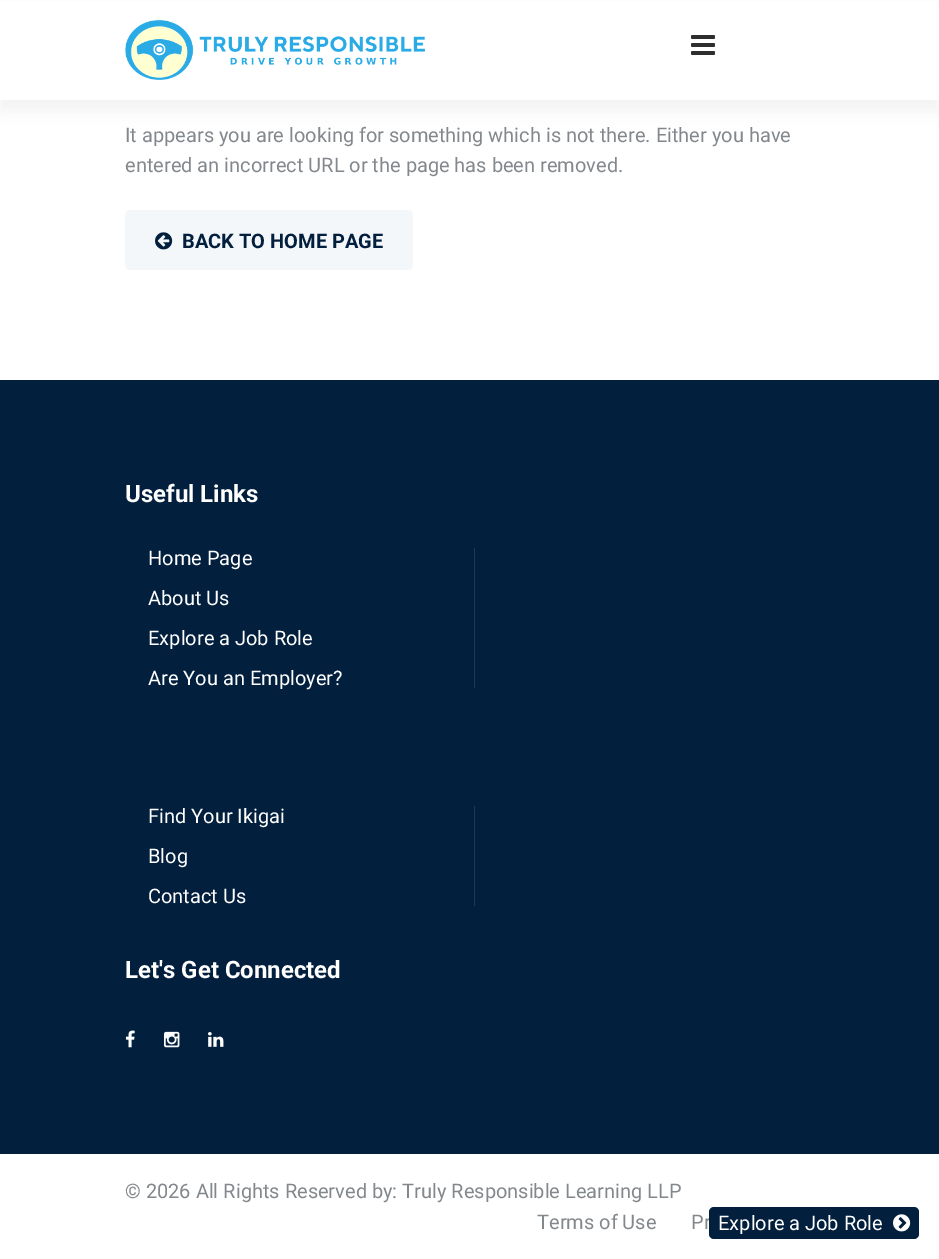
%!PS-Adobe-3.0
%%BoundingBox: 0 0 939 1259
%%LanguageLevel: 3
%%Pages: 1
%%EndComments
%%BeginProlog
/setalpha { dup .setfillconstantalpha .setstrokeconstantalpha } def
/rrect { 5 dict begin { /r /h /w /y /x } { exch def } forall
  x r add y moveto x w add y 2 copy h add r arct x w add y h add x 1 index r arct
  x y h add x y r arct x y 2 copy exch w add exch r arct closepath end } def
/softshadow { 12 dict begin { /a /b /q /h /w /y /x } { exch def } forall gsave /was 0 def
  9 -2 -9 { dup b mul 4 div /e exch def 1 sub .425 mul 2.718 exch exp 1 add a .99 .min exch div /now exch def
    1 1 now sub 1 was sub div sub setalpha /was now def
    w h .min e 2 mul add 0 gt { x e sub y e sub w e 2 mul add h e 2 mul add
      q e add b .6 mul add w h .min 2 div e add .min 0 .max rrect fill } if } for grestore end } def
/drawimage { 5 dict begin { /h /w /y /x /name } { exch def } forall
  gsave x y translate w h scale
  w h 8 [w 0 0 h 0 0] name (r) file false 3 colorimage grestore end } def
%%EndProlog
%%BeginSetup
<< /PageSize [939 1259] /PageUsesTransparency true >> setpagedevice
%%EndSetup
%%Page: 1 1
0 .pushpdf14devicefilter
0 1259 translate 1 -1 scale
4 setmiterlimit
1 setgray
0 0 939 1259 rectfill
0 setgray
0 10 939 100 0 10 0.05 softshadow
1 setgray
0 2 939 98 rectfill
(images/1.raw) 125 20 300 60 drawimage
(images/2.raw) 691 35 24 20 drawimage
0.953 0.969 0.98 setrgbcolor
125 210 288 60 5 rrect fill
(images/3.raw) 155 232 18 18 drawimage
0.008 0.122 0.239 setrgbcolor
0 380 939 774 rectfill
0.129 0.227 0.329 setrgbcolor
474 548 1 140 rectfill
474 806 1 100 rectfill
(images/4.raw) 125 1030 10 18 drawimage
(images/5.raw) 164 1031 16 17 drawimage
(images/6.raw) 208 1032 16 15 drawimage
/Roboto-Regular [20 0 0 -20 0 0] selectfont
0.514 0.533 0.553 setrgbcolor
125 142 moveto (It appears you are looking for something which is not there. Either you have) show
125 172 moveto (entered an incorrect URL or the page has been removed.) show
/Roboto-Bold [20 0 0 -20 0 0] selectfont
0.008 0.122 0.239 setrgbcolor
182 248 moveto (BACK TO HOME PAGE) show
/Roboto-Bold [24 0 0 -24 0 0] selectfont
1 setgray
125 502 moveto (Useful Links) show
/Roboto-Regular [20 0 0 -20 0 0] selectfont
148 565 moveto (Home Page) show
148 605 moveto (About Us) show
148 645 moveto (Explore a Job Role) show
148 685 moveto (Are You an Employer?) show
148 823 moveto (Find Your Ikigai) show
148 863 moveto (Blog) show
148 903 moveto (Contact Us) show
/Roboto-Bold [24 0 0 -24 0 0] selectfont
125 978 moveto (Let's Get Connected) show
/Roboto-Regular [20 0 0 -20 0 0] selectfont
0.514 0.533 0.553 setrgbcolor
125 1198 moveto (© 2026 All Rights Reserved by: Truly Responsible Learning LLP) show
537 1229 moveto (Terms of Use) show
691 1229 moveto (Pr) show
0.008 0.122 0.239 setrgbcolor
709 1207 210 32 5 rrect fill
1 setgray
718 1230 moveto (Explore a Job Role) show
(images/7.raw) 893 1214 18 18 drawimage
.poppdf14devicefilter showpage
%%EOF
